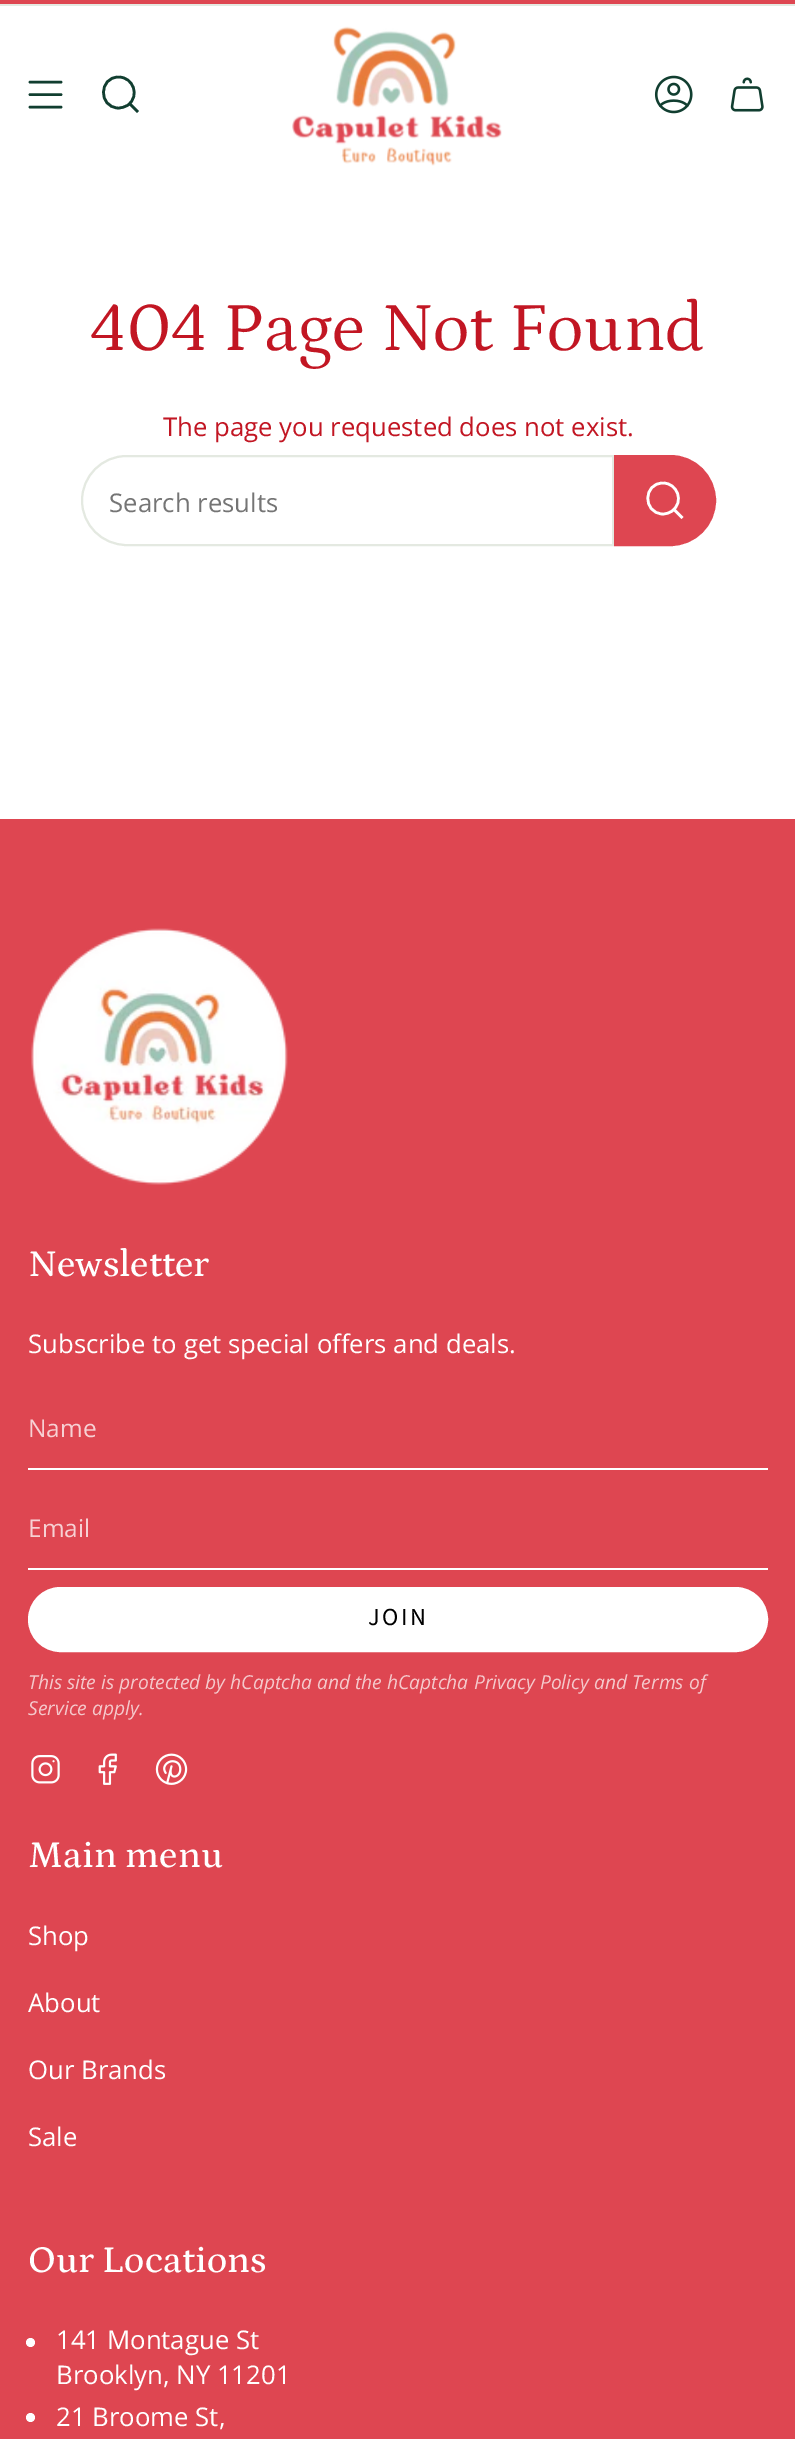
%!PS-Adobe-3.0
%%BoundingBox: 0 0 795 2439
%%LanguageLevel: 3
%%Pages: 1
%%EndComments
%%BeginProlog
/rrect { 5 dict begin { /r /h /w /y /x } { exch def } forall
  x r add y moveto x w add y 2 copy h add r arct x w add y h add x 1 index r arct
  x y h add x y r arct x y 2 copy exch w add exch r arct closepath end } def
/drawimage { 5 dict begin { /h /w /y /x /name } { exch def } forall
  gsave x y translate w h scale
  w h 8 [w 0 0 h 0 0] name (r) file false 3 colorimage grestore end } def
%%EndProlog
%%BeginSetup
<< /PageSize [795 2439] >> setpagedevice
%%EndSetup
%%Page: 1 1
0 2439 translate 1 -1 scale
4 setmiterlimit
1 setgray
0 0 795 2439 rectfill
0.871 0.275 0.318 setrgbcolor
0 0 795 4 rectfill
0.894 0.914 0.882 setrgbcolor
0 4 795 2 rectfill
0.067 0.243 0.188 setrgbcolor
2.6 setlinewidth
1 setlinecap
1 setlinejoin
newpath 30 82 moveto 61 82 lineto 30 94.5 moveto 61 94.5 lineto 30 107 moveto 61 107 lineto stroke
0 setlinecap
0 setlinejoin
newpath 118.5 77 moveto 133.5 77 140 96 128 105 curveto 125 107 121.5 108 118 108 curveto 98 107 99 77 118.5 77 curveto closepath 129.5 103.5 moveto 138 112 lineto stroke
(images/1.raw) 292 26 210 140 drawimage
(images/2.raw) 654 75 39 39 drawimage
(images/3.raw) 730 77 34 35 drawimage
0.894 0.914 0.882 setrgbcolor
2 setlinewidth
newpath 126.5 456 moveto 613 456 lineto 613 545 lineto 126.5 545 lineto 102 545 82 525 82 500.5 curveto 82 476 102 456 126.5 456 curveto closepath stroke
0.871 0.275 0.318 setrgbcolor
newpath 615 456 moveto 670.5 456 lineto 695 456 715 476 715 500.5 curveto 715 525 695 545 670.5 545 curveto 615 545 lineto closepath gsave fill grestore
stroke
1 setgray
2.6 setlinewidth
newpath 663 483 moveto 677.5 483 684.5 502 672 511 curveto 669.5 513 666 514 662.5 514 curveto 642.5 513 643 483 663 483 curveto closepath 674 509.5 moveto 682.5 518 lineto stroke
0.871 0.275 0.318 setrgbcolor
0 819 795 1620 rectfill
(images/4.raw) 31 928 257 257 drawimage
1 setgray
28 1468 740 2 rectfill
28 1568 740 2 rectfill
29 1588 738 63 31.5 rrect gsave fill grestore
2 setlinewidth
stroke
(images/5.raw) 31 1755 29 29 drawimage
(images/6.raw) 98 1753 19 32 drawimage
(images/7.raw) 155 1753 33 32 drawimage
newpath 30.5 2342.5 4.5 0 360 arc closepath fill
newpath 30.5 2417.5 4.5 0 360 arc closepath fill
/Petrona-Regular [70 0 0 -70 0 0] selectfont
0.761 0.086 0.137 setrgbcolor
91 350 moveto (404 Page Not Found) show
/OpenSans-Regular [25.75 0 0 -25.75 0 0] selectfont
163 436 moveto (The page you requested does not exist.) show
0.459 setgray
109 512 moveto (Search results) show
/Petrona-Medium [38.25 0 0 -38.25 0 0] selectfont
1 setgray
28 1276 moveto (Newsletter) show
/OpenSans-Regular [25.75 0 0 -25.75 0 0] selectfont
28 1353 moveto (Subscribe to get special offers and deals.) show
/OpenSans-Regular [24.5 0 0 -24.5 0 0] selectfont
0.969 0.82 0.831 setrgbcolor
28 1437 moveto (Name) show
28 1537 moveto (Email) show
/SourceSansPro-Regular [24.5 0 0 -24.5 0 0] selectfont
0 setgray
368 1625 moveto 2.5 0 (JOIN) ashow
/OpenSans-Italic [19.25 0 0 -19.25 0 0] selectfont
0.961 0.784 0.796 setrgbcolor
28 1689 moveto (This site is protected by hCaptcha and the hCaptcha) show
474 1689 moveto (Privacy Policy and Terms of) show
28 1715 moveto (Service apply.) show
/Petrona-Medium [38.25 0 0 -38.25 0 0] selectfont
1 setgray
28 1867 moveto (Main menu) show
/OpenSans-Regular [25.75 0 0 -25.75 0 0] selectfont
28 1945 moveto (Shop) show
28 2012 moveto (About) show
28 2079 moveto (Our Brands) show
28 2146 moveto (Sale) show
/Petrona-Medium [38.25 0 0 -38.25 0 0] selectfont
28 2272 moveto (Our Locations) show
/OpenSans-Regular [25.75 0 0 -25.75 0 0] selectfont
56 2349 moveto (141 Montague St) show
56 2384 moveto (Brooklyn, NY 11201) show
56 2426 moveto (21 Broome St,) show
showpage
%%EOF
